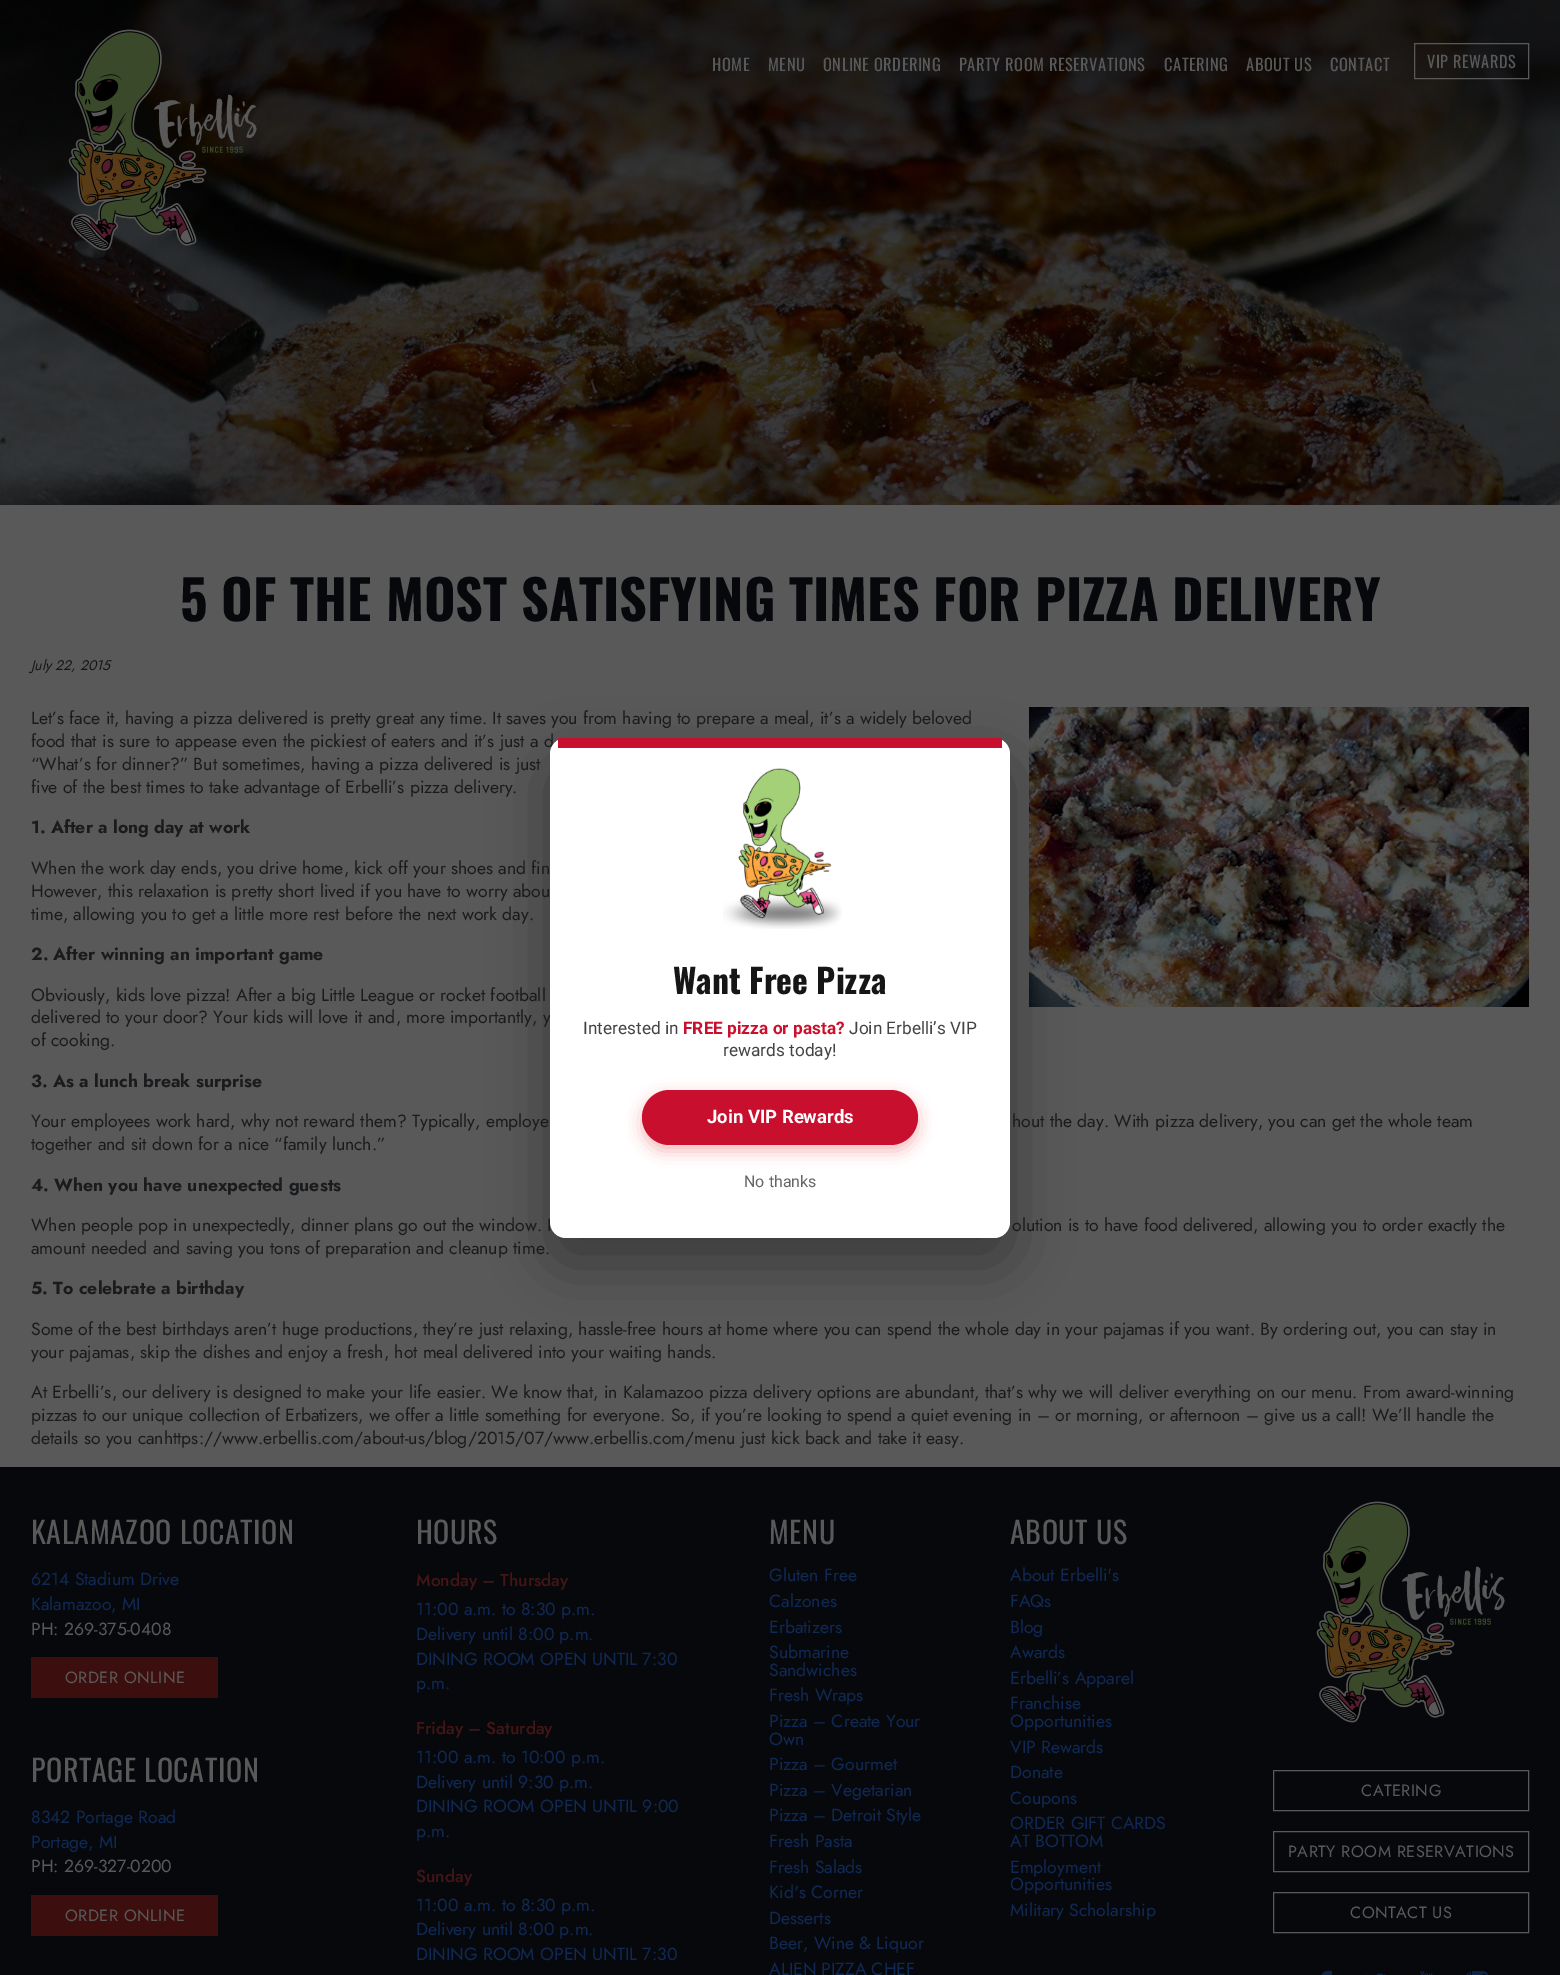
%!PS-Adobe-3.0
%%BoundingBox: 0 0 1560 1975
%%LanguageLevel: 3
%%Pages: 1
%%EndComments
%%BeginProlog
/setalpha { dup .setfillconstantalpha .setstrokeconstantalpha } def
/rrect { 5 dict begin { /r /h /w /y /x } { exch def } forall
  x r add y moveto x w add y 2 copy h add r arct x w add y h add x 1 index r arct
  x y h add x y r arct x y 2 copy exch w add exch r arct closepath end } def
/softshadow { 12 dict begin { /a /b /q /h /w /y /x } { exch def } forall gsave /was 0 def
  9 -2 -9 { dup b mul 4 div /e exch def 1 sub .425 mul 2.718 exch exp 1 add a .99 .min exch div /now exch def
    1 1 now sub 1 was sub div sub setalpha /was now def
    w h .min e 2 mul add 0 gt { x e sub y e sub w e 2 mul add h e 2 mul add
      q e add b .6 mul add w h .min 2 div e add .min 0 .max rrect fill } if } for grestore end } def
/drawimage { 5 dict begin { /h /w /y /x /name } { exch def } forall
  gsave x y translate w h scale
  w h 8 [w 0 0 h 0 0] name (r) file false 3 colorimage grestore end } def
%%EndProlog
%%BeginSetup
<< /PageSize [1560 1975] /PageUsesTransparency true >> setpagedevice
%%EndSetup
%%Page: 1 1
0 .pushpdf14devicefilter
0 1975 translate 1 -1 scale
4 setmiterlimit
0.349 setgray
0 0 1560 1975 rectfill
(images/1.raw) 0 0 1560 505 drawimage
(images/2.raw) 68 29 189 222 drawimage
1414.5 43.5 114 35 rectstroke
(images/3.raw) 1029 707 500 300 drawimage
0.024 0.031 0.047 setrgbcolor
0 1467 1560 508 rectfill
0.235 0.059 0.055 setrgbcolor
31 1657 187 41 rectfill
31 1895 187 41 rectfill
(images/4.raw) 1316 1501 189 222 drawimage
0.349 setgray
1273.5 1770.5 255 40 rectstroke
1273.5 1831.5 255 40 rectstroke
1273.5 1892.5 255 40 rectstroke
(images/5.raw) 1321 1970 11 5 drawimage
(images/6.raw) 1365 1973 21 2 drawimage
(images/7.raw) 1420 1970 13 5 drawimage
(images/8.raw) 1466 1971 23 4 drawimage
0 setgray
550 763 460 500 16 30 0.35 softshadow
/Oswald-Regular [16.5 0 0 -16.5 0 0] selectfont
0.349 setgray
712 71 moveto 0.5 0 (HOME) ashow
768 71 moveto 0.5 0 (MENU) ashow
823 71 moveto 0.5 0 (ONLINE ORDERING) ashow
959 71 moveto 0.5 0 (PARTY ROOM RESERVATIONS) ashow
1164 71 moveto 0.5 0 (CATERING) ashow
1246 71 moveto 0.5 0 (ABOUT US) ashow
1330 71 moveto 0.5 0 (CONTACT) ashow
/Oswald-Regular [16.25 0 0 -16.25 0 0] selectfont
1427 68 moveto 0.5 0 (VIP REWARDS) ashow
/Oswald-Bold [54.1 0 0 -54.1 0 0] selectfont
0.024 0.031 0.047 setrgbcolor
180 621 moveto (5 OF THE MOST SATISFYING TIMES FOR PIZZA DELIVERY) show
/Jost-Italic [14 0 0 -14 0 0] selectfont
0.086 setgray
31 670 moveto (July 22, 2015) show
/Jost-Regular [17.6 0 0 -17.6 0 0] selectfont
0.102 0.106 0.114 setrgbcolor
31 724 moveto (Let’s face it, having a pizza delivered is pretty great any time. It saves you from having to prepare a meal, it’s a widely beloved) show
31 747 moveto (food that is sure to appease even the pickiest of eaters and it’s just a d) show
31 770 moveto (“What’s for dinner?” But sometimes, having a pizza delivered is just) show
31 793 moveto (five of the best times to take advantage of Erbelli’s pizza delivery.) show
/Jost-Bold [17.6 0 0 -17.6 0 0] selectfont
31 833 moveto (1. After a long day at work) show
/Jost-Regular [17.6 0 0 -17.6 0 0] selectfont
31 874 moveto (When the work day ends, you drive home, kick off your shoes and fin) show
31 897 moveto (However, this relaxation is pretty short lived if you have to worry abou) show
31 920 moveto (time, allowing you to get a little more rest before the next work day.) show
/Jost-Bold [17.6 0 0 -17.6 0 0] selectfont
31 960 moveto (2. After winning an important game) show
/Jost-Regular [17.6 0 0 -17.6 0 0] selectfont
31 1001 moveto (Obviously, kids love pizza! After a big Little League or rocket football) show
31 1023 moveto (delivered to your door? Your kids will love it and, more importantly, y) show
31 1046 moveto (of cooking.) show
/Jost-Bold [17.6 0 0 -17.6 0 0] selectfont
31 1087 moveto (3. As a lunch break surprise) show
/Jost-Regular [17.6 0 0 -17.6 0 0] selectfont
31 1127 moveto (Your employees work hard, why not reward them? Typically, employe) show
1012 1127 moveto (hout the day. With pizza delivery, you can get the whole team) show
31 1150 moveto (together and sit down for a nice “family lunch.”) show
/Jost-Bold [17.6 0 0 -17.6 0 0] selectfont
31 1191 moveto (4. When you have unexpected guests) show
/Jost-Regular [17.6 0 0 -17.6 0 0] selectfont
31 1231 moveto (When people pop in unexpectedly, dinner plans go out the window. I) show
1012 1231 moveto (olution is to have food delivered, allowing you to order exactly the) show
31 1254 moveto (amount needed and saving you tons of preparation and cleanup time.) show
/Jost-Bold [17.6 0 0 -17.6 0 0] selectfont
31 1294 moveto (5. To celebrate a birthday) show
/Jost-Regular [17.6 0 0 -17.6 0 0] selectfont
31 1335 moveto (Some of the best birthdays aren’t huge productions, they’re just relaxing, hassle-free hours at home where you can spend the whole day in your pajamas if you want. By ordering out, you can stay in) show
31 1358 moveto (your pajamas, skip the dishes and enjoy a fresh, hot meal delivered into your waiting hands.) show
31 1398 moveto (At Erbelli’s, our delivery is designed to make your life easier. We know that, in Kalamazoo pizza delivery options are abundant, that’s why we will deliver everything on our menu. From award-winning) show
31 1421 moveto (pizzas to our unique collection of Erbatizers, we offer a little something for everyone. So, if you’re looking to spend a quiet evening in – or morning, or afternoon – give us a call! We’ll handle the) show
31 1444 moveto (details so you canhttps://www.erbellis.com/about-us/blog/2015/07/www.erbellis.com/menu just kick back and take it easy.) show
/Oswald-Regular [30 0 0 -30 0 0] selectfont
0.349 setgray
31 1544 moveto 0.6 0 (KALAMAZOO LOCATION) ashow
/Jost-Regular [17.6 0 0 -17.6 0 0] selectfont
0.063 0.161 0.329 setrgbcolor
31 1585 moveto (6214 Stadium Drive) show
31 1610 moveto (Kalamazoo, MI) show
0.349 setgray
31 1635 moveto (PH: 269-375-0408) show
/Jost-Regular [16.25 0 0 -16.25 0 0] selectfont
65 1683 moveto 0.5 0 (ORDER ONLINE) ashow
/Oswald-Regular [30 0 0 -30 0 0] selectfont
31 1782 moveto 0.6 0 (PORTAGE LOCATION) ashow
/Jost-Regular [17.6 0 0 -17.6 0 0] selectfont
0.063 0.161 0.329 setrgbcolor
31 1823 moveto (8342 Portage Road) show
31 1848 moveto (Portage, MI) show
0.349 setgray
31 1872 moveto (PH: 269-327-0200) show
/Jost-Regular [16.25 0 0 -16.25 0 0] selectfont
65 1921 moveto 0.5 0 (ORDER ONLINE) ashow
/Oswald-Regular [30 0 0 -30 0 0] selectfont
416 1544 moveto 0.6 0 (HOURS) ashow
/Jost-Medium [17.25 0 0 -17.25 0 0] selectfont
0.267 0.082 0.078 setrgbcolor
416 1586 moveto (Monday – Thursday) show
/Jost-Regular [17.6 0 0 -17.6 0 0] selectfont
0.063 0.161 0.329 setrgbcolor
416 1615 moveto (11:00 a.m. to 8:30 p.m.) show
416 1640 moveto (Delivery until 8:00 p.m.) show
416 1665 moveto (DINING ROOM OPEN UNTIL 7:30) show
416 1689 moveto (p.m.) show
/Jost-Medium [17.25 0 0 -17.25 0 0] selectfont
0.267 0.082 0.078 setrgbcolor
416 1734 moveto (Friday – Saturday) show
/Jost-Regular [17.6 0 0 -17.6 0 0] selectfont
0.063 0.161 0.329 setrgbcolor
416 1763 moveto (11:00 a.m. to 10:00 p.m.) show
416 1788 moveto (Delivery until 9:30 p.m.) show
416 1812 moveto (DINING ROOM OPEN UNTIL 9:00) show
416 1837 moveto (p.m.) show
/Jost-Medium [17.25 0 0 -17.25 0 0] selectfont
0.267 0.082 0.078 setrgbcolor
416 1882 moveto (Sunday) show
/Jost-Regular [17.6 0 0 -17.6 0 0] selectfont
0.063 0.161 0.329 setrgbcolor
416 1911 moveto (11:00 a.m. to 8:30 p.m.) show
416 1935 moveto (Delivery until 8:00 p.m.) show
416 1960 moveto (DINING ROOM OPEN UNTIL 7:30) show
/Oswald-Regular [30 0 0 -30 0 0] selectfont
0.349 setgray
769 1544 moveto 0.6 0 (MENU) ashow
/Jost-Regular [17.6 0 0 -17.6 0 0] selectfont
0.063 0.161 0.329 setrgbcolor
769 1581 moveto (Gluten Free) show
769 1607 moveto (Calzones) show
769 1633 moveto (Erbatizers) show
769 1658 moveto (Submarine) show
769 1676 moveto (Sandwiches) show
769 1701 moveto (Fresh Wraps) show
769 1727 moveto (Pizza – Create Your) show
769 1745 moveto (Own) show
769 1770 moveto (Pizza – Gourmet) show
769 1796 moveto (Pizza – Vegetarian) show
769 1821 moveto (Pizza – Detroit Style) show
769 1847 moveto (Fresh Pasta) show
769 1873 moveto (Fresh Salads) show
769 1898 moveto (Kid's Corner) show
769 1924 moveto (Desserts) show
769 1949 moveto (Beer, Wine & Liquor) show
769 1975 moveto (ALIEN PIZZA CHEF) show
/Oswald-Regular [30 0 0 -30 0 0] selectfont
0.349 setgray
1010 1544 moveto 0.6 0 (ABOUT US) ashow
/Jost-Regular [17.6 0 0 -17.6 0 0] selectfont
0.063 0.161 0.329 setrgbcolor
1010 1581 moveto (About Erbelli's) show
1010 1607 moveto (FAQs) show
1010 1633 moveto (Blog) show
1010 1658 moveto (Awards) show
1010 1684 moveto (Erbelli’s Apparel) show
1010 1709 moveto (Franchise) show
1010 1727 moveto (Opportunities) show
1010 1753 moveto (VIP Rewards) show
1010 1778 moveto (Donate) show
1010 1804 moveto (Coupons) show
1010 1829 moveto (ORDER GIFT CARDS) show
1010 1847 moveto (AT BOTTOM) show
1010 1873 moveto (Employment) show
1010 1890 moveto (Opportunities) show
1010 1916 moveto (Military Scholarship) show
/Jost-Regular [16.25 0 0 -16.25 0 0] selectfont
0.349 setgray
1361 1796 moveto 0.5 0 (CATERING) ashow
1288 1857 moveto 0.5 0 (PARTY ROOM RESERVATIONS) ashow
1350 1918 moveto 0.5 0 (CONTACT US) ashow
1 setgray
550 738 460 500 16 rrect fill
0.784 0.063 0.18 setrgbcolor
558 738 444 10 rectfill
(images/9.raw) 723 768 119 161 drawimage
/Oswald-Bold [33.5 0 0 -33.5 0 0] selectfont
0.086 setgray
673 994 moveto (Want Free Pizza) show
/Roboto-Regular [17.25 0 0 -17.25 0 0] selectfont
0.267 setgray
583 1034 moveto (Interested in) show
/Roboto-Bold [17.25 0 0 -17.25 0 0] selectfont
0.784 0.063 0.18 setrgbcolor
683 1034 moveto (FREE pizza or pasta?) show
/Roboto-Regular [17.25 0 0 -17.25 0 0] selectfont
0.267 setgray
849 1034 moveto (Join Erbelli’s VIP) show
723 1056 moveto (rewards today!) show
0.902 0.224 0.275 setrgbcolor
642 1096 276 55 27.5 8 0.35 softshadow
0.784 0.063 0.18 setrgbcolor
642 1090 276 55 27.5 rrect fill
/Roboto-Bold [18.5 0 0 -18.5 0 0] selectfont
1 setgray
707 1123 moveto (Join VIP Rewards) show
/Roboto-Regular [16 0 0 -16 0 0] selectfont
0.4 setgray
744 1187 moveto (No thanks) show
.poppdf14devicefilter showpage
%%EOF
